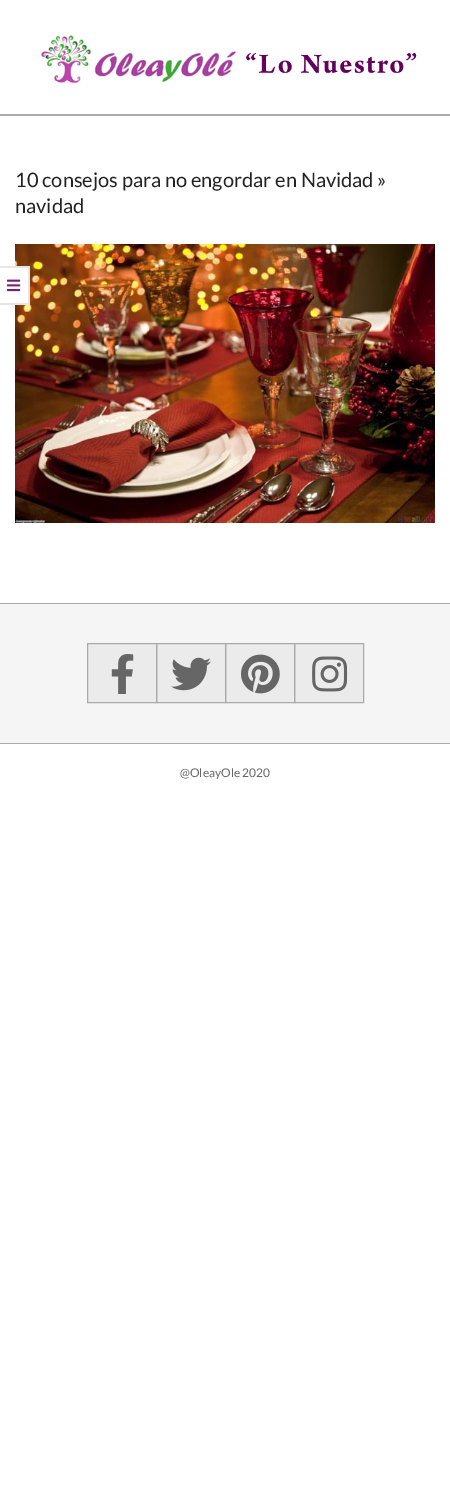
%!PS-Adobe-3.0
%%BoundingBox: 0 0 450 1508
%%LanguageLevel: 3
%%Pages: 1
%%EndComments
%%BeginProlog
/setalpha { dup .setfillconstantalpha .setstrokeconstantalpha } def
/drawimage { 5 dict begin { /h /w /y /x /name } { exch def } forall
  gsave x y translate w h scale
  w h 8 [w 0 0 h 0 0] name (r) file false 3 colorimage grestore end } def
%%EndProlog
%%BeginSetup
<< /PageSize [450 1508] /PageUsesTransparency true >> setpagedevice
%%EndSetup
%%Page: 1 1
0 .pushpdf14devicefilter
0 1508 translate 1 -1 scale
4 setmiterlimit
1 setgray
0 0 450 1508 rectfill
0.667 setgray
0 114 450 2 rectfill
(images/1.raw) 41 35 376 49 drawimage
(images/3.raw) 15 244 420 279 drawimage
1 setgray
15 266 15 39 rectfill
0.902 setgray
newpath 0 266 moveto 30 266 lineto 28 268 lineto 0 268 lineto closepath fill
0.1 setalpha
0 setgray
newpath 30 266 moveto 30 305 lineto 28 303 lineto 28 268 lineto closepath fill
newpath 30 305 moveto 0 305 lineto 0 303 lineto 28 303 lineto closepath fill
1 setalpha
(images/2.raw) 7 279 14 13 drawimage
0.961 setgray
0 604 450 139 rectfill
0.667 setgray
0 603 450 1 rectfill
0.922 setgray
newpath 87.5 643.5 moveto 156.5 643.5 lineto 156.5 702.5 lineto 87.5 702.5 lineto closepath gsave fill grestore
0.667 setgray
stroke
(images/4.raw) 111 654 23 40 drawimage
0.04 setalpha
0 setgray
newpath 156.5 643.5 moveto 225.5 643.5 lineto 225.5 702.5 lineto 156.5 702.5 lineto closepath fill
1 setalpha
0.667 setgray
newpath 156.5 643.5 moveto 225.5 643.5 lineto 225.5 702.5 lineto 156.5 702.5 lineto closepath stroke
(images/5.raw) 171 657 40 34 drawimage
0.04 setalpha
0 setgray
newpath 225.5 643.5 moveto 294.5 643.5 lineto 294.5 702.5 lineto 225.5 702.5 lineto closepath fill
1 setalpha
0.667 setgray
newpath 225.5 643.5 moveto 294.5 643.5 lineto 294.5 702.5 lineto 225.5 702.5 lineto closepath stroke
(images/6.raw) 241 654 39 40 drawimage
0.04 setalpha
0 setgray
newpath 294.5 643.5 moveto 363.5 643.5 lineto 363.5 702.5 lineto 294.5 702.5 lineto closepath fill
1 setalpha
0.667 setgray
newpath 294.5 643.5 moveto 363.5 643.5 lineto 363.5 702.5 lineto 294.5 702.5 lineto closepath stroke
(images/7.raw) 312 656 36 36 drawimage
0.671 setgray
0 743 450 1 rectfill
/Lato-Regular [20 0 0 -20 0 0] selectfont
0.133 setgray
15 187 moveto (10 consejos para no engordar en Navidad ») show
15 213 moveto (navidad) show
/Lato-Regular [12 0 0 -12 0 0] selectfont
0.4 setgray
180 777 moveto (@OleayOle 2020) show
.poppdf14devicefilter showpage
%%EOF
